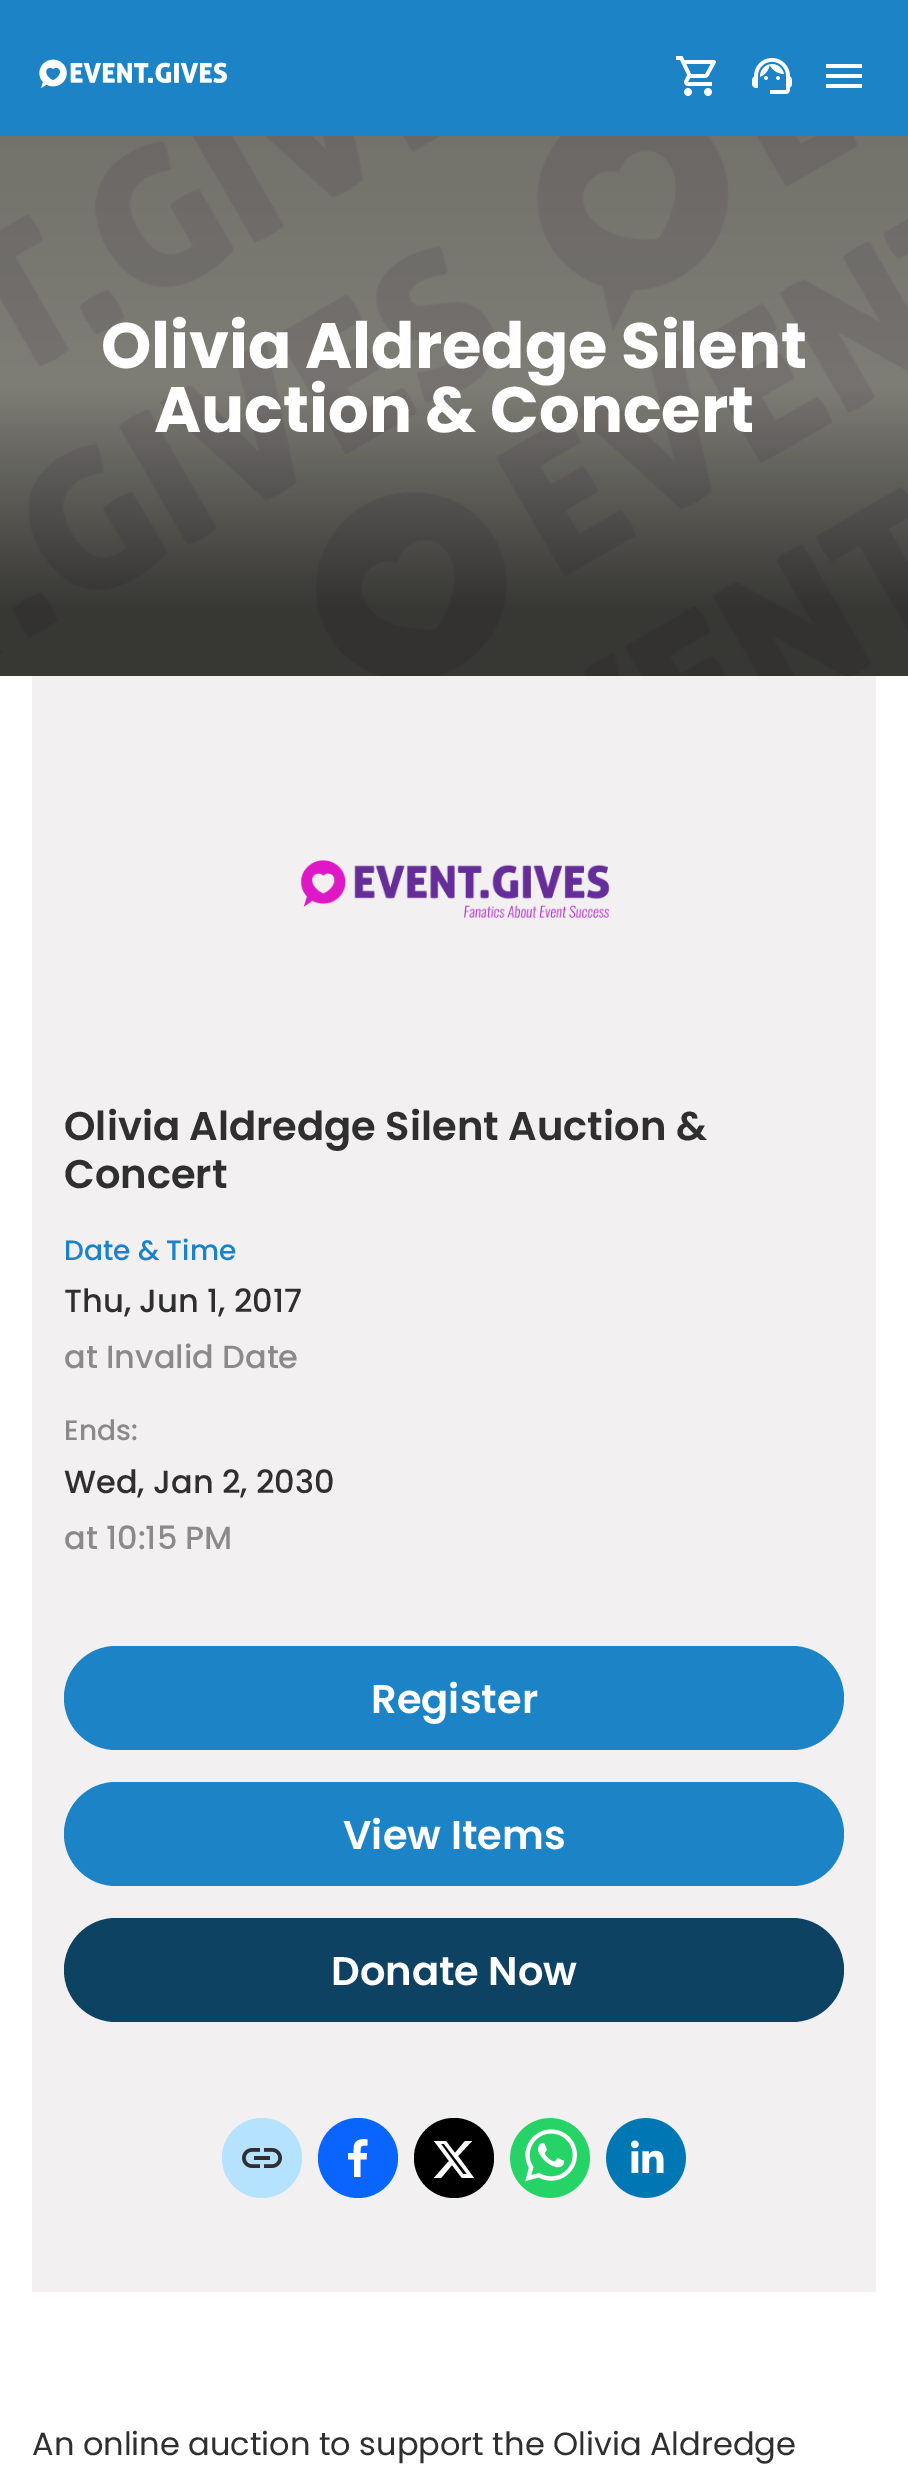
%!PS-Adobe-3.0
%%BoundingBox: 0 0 908 2475
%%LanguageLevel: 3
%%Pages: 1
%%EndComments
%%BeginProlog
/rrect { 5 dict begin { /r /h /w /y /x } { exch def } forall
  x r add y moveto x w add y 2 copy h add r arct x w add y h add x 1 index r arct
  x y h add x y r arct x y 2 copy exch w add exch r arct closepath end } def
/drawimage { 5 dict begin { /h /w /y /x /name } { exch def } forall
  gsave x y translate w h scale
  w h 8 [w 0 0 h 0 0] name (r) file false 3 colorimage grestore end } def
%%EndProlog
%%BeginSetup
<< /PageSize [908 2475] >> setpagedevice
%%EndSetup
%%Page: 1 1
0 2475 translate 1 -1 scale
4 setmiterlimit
1 setgray
0 0 908 2475 rectfill
0.11 0.518 0.776 setrgbcolor
0 0 908 136 rectfill
(images/1.raw) 39 59 188 30 drawimage
(images/2.raw) 676 56 40 40 drawimage
(images/3.raw) 752 58 40 36 drawimage
1 setgray
newpath 826 88 moveto 862 88 lineto 862 84 lineto 826 84 lineto closepath 826 78 moveto 862 78 lineto 862 74 lineto 826 74 lineto closepath 826 64 moveto 826 68 lineto 862 68 lineto 862 64 lineto closepath fill
(images/4.raw) 0 136 908 540 drawimage
0.949 0.941 0.941 setrgbcolor
32 676 844 1616 rectfill
(images/5.raw) 300 860 310 58 drawimage
0.11 0.518 0.776 setrgbcolor
64 1646 780 104 52 rrect fill
64 1782 780 104 52 rrect fill
0.055 0.259 0.388 setrgbcolor
64 1918 780 104 52 rrect fill
0.71 0.89 1 setrgbcolor
newpath 262 2158 40 0 360 arc closepath fill
(images/6.raw) 242 2148 40 20 drawimage
0.035 0.396 0.996 setrgbcolor
newpath 358 2158 40 0 360 arc closepath fill
1 setgray
newpath 360.5 2177 moveto 360.5 2159.5 lineto 366.5 2159.5 lineto 367 2153 lineto 360.5 2153 lineto 360.5 2146 360 2145.5 367.5 2145.5 curveto 367.5 2139.5 lineto 362 2138.5 355 2139.5 354 2146 curveto 353.5 2153 lineto 348 2153 lineto 348 2159.5 lineto 354 2159.5 lineto 354 2177 lineto closepath fill
0 setgray
newpath 454 2158 40 0 360 arc closepath fill
1 setgray
newpath 465 2141 moveto 472 2141 lineto 458 2156 lineto 474 2178 lineto 462 2178 lineto 452 2165 lineto 441 2178 lineto 434 2178 lineto 449 2161 lineto 434 2141 lineto 446 2141 lineto 455 2153 lineto closepath 463 2174 moveto 467 2174 lineto 444 2144 lineto 441 2144 lineto closepath fill
(images/7.raw) 510 2118 80 80 drawimage
(images/8.raw) 606 2118 80 80 drawimage
/Poppins-Bold [64 0 0 -64 0 0] selectfont
101 368 moveto (Olivia Aldredge Silent) show
154 432 moveto (Auction & Concert) show
/Poppins-SemiBold [40 0 0 -40 0 0] selectfont
0.184 setgray
64 1140 moveto (Olivia Aldredge Silent Auction &) show
64 1188 moveto (Concert) show
/Poppins-Medium [28 0 0 -28 0 0] selectfont
0.11 0.518 0.776 setrgbcolor
64 1260 moveto (Date & Time) show
/Poppins-Medium [32 0 0 -32 0 0] selectfont
0.184 setgray
64 1312 moveto (Thu, Jun 1, 2017) show
0.545 0.541 0.541 setrgbcolor
64 1368 moveto (at Invalid Date) show
/Poppins-Medium [28 0 0 -28 0 0] selectfont
64 1440 moveto (Ends:) show
/Poppins-Medium [32 0 0 -32 0 0] selectfont
0.184 setgray
64 1493 moveto (Wed, Jan 2, 2030) show
0.545 0.541 0.541 setrgbcolor
64 1549 moveto (at 10:15 PM) show
/Poppins-SemiBold [40 0 0 -40 0 0] selectfont
1 setgray
371 1713 moveto (Register) show
343 1849 moveto (View Items) show
331 1985 moveto (Donate Now) show
/Poppins-Regular [32 0 0 -32 0 0] selectfont
0.184 setgray
32 2455 moveto (An online auction to support the Olivia Aldredge) show
showpage
%%EOF
